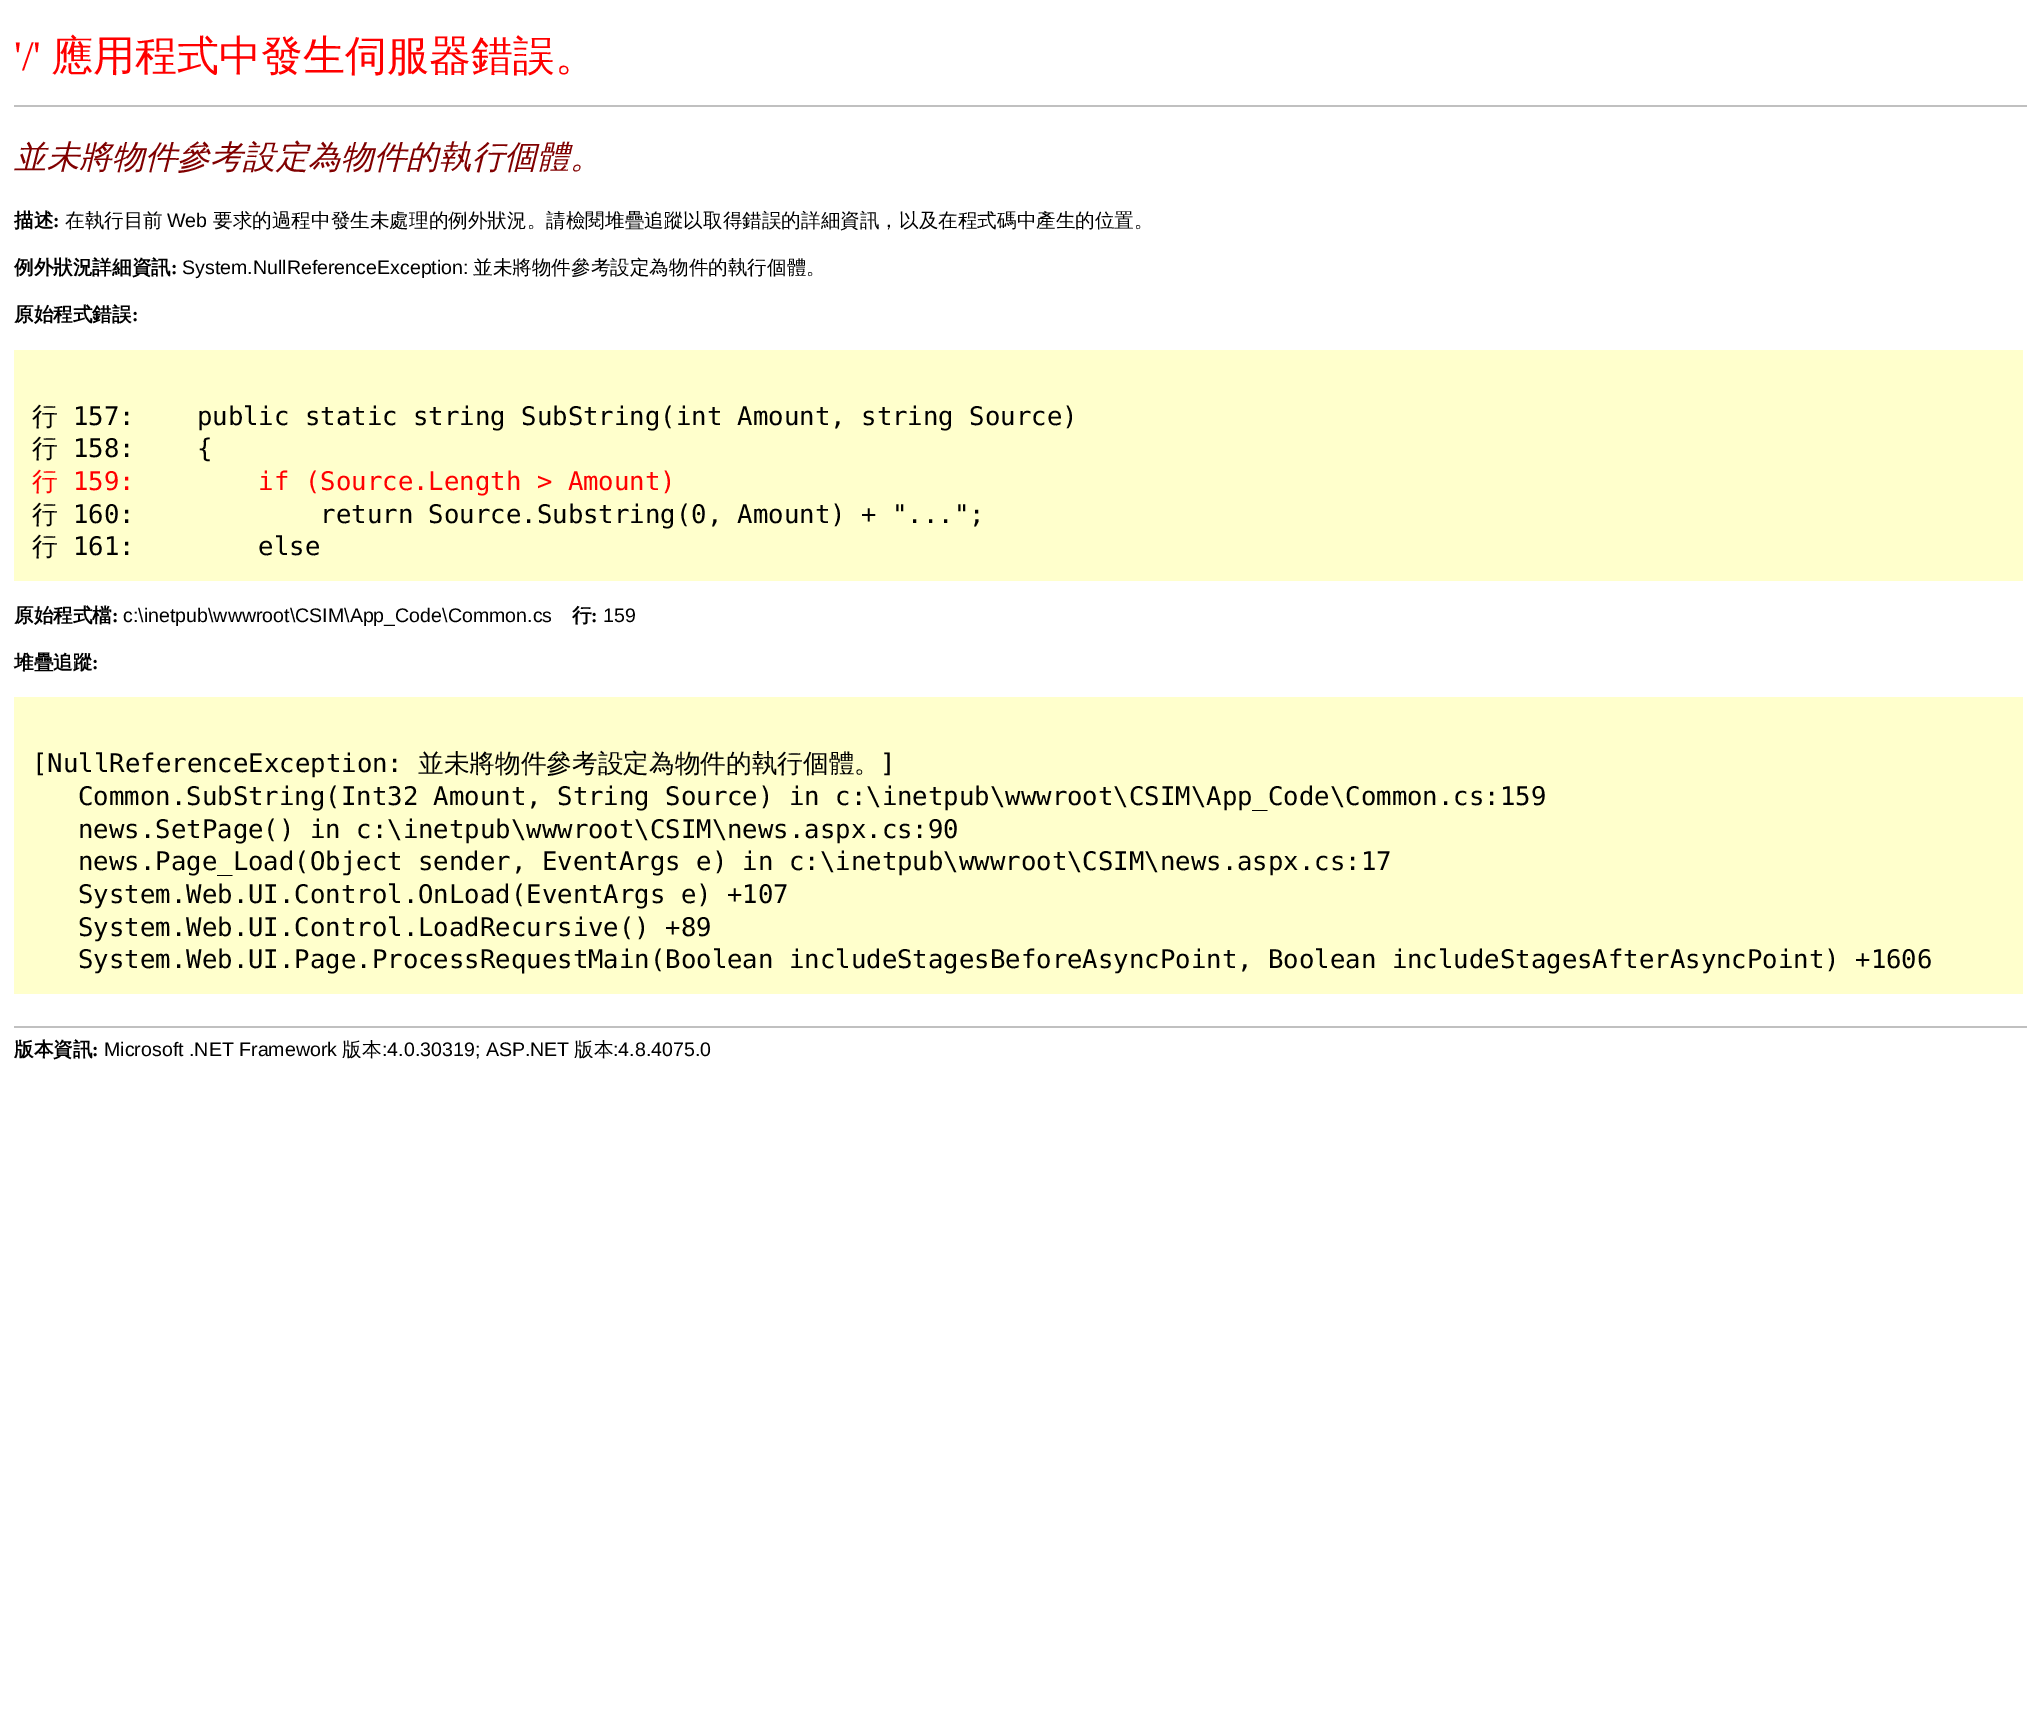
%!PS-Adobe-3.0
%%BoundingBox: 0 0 2037 1721
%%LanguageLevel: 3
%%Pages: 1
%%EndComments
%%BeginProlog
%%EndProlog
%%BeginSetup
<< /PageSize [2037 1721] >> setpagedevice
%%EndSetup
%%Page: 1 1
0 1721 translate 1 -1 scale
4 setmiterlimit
1 setgray
0 0 2037 1721 rectfill
0.753 setgray
14 105 2013 2 rectfill
1 1 0.8 setrgbcolor
14 350 2009 231 rectfill
14 697 2009 297 rectfill
0.753 setgray
14 1026 2013 2 rectfill
/LiberationSerif-Regular [42 0 0 -42 0 0] selectfont
1 0 0 setrgbcolor
14 70 moveto ('/') show
/WenQuanYiZenHei-Medium [42 0 0 -42 0 0] selectfont
51 70 moveto (應用程式中發生伺服器錯誤。) show
/WenQuanYiZenHei-MediumItalic [32.7 0 0 -32.7 0 0] selectfont
0.502 0 0 setrgbcolor
14 168 moveto (並未將物件參考設定為物件的執行個體。) show
/WenQuanYiZenHei-Bold [19.6 0 0 -19.6 0 0] selectfont
0 setgray
14 227 moveto (描述) show
/LiberationSerif-Bold [19.6 0 0 -19.6 0 0] selectfont
53 227 moveto (:) show
/WenQuanYiZenHei-Medium [19.6 0 0 -19.6 0 0] selectfont
65 227 moveto (在執行目前) show
/LiberationSans-Regular [19.6 0 0 -19.6 0 0] selectfont
167 227 moveto (Web) show
/WenQuanYiZenHei-Medium [19.6 0 0 -19.6 0 0] selectfont
213 227 moveto (要求的過程中發生未處理的例外狀況。請檢閱堆疊追蹤以取得錯誤的詳細資訊，以及在程式碼中產生的位置。) show
/WenQuanYiZenHei-Bold [19.6 0 0 -19.6 0 0] selectfont
14 274 moveto (例外狀況詳細資訊) show
/LiberationSerif-Bold [19.6 0 0 -19.6 0 0] selectfont
171 274 moveto (:) show
/LiberationSans-Regular [19.6 0 0 -19.6 0 0] selectfont
182 274 moveto (System.NullReferenceException:) show
/WenQuanYiZenHei-Medium [19.6 0 0 -19.6 0 0] selectfont
473 274 moveto (並未將物件參考設定為物件的執行個體。) show
/WenQuanYiZenHei-Bold [19.6 0 0 -19.6 0 0] selectfont
14 321 moveto (原始程式錯誤) show
/LiberationSerif-Bold [19.6 0 0 -19.6 0 0] selectfont
132 321 moveto (:) show
/WenQuanYiZenHei-Medium [25.67 0 0 -25.67 0 0] selectfont
32 425 moveto (行) show
/DejaVuSansMono-Regular [25.67 0 0 -25.67 0 0] selectfont
73 425 moveto (157:    public static string SubString\(int Amount, string Source\)) show
/WenQuanYiZenHei-Medium [25.67 0 0 -25.67 0 0] selectfont
32 457 moveto (行) show
/DejaVuSansMono-Regular [25.67 0 0 -25.67 0 0] selectfont
73 457 moveto (158:    {) show
/WenQuanYiZenHei-Medium [25.67 0 0 -25.67 0 0] selectfont
1 0 0 setrgbcolor
32 490 moveto (行) show
/DejaVuSansMono-Regular [25.67 0 0 -25.67 0 0] selectfont
73 490 moveto (159:        if \(Source.Length > Amount\)) show
/WenQuanYiZenHei-Medium [25.67 0 0 -25.67 0 0] selectfont
0 setgray
32 523 moveto (行) show
/DejaVuSansMono-Regular [25.67 0 0 -25.67 0 0] selectfont
73 523 moveto (160:            return Source.Substring\(0, Amount\) + "...";) show
/WenQuanYiZenHei-Medium [25.67 0 0 -25.67 0 0] selectfont
32 555 moveto (行) show
/DejaVuSansMono-Regular [25.67 0 0 -25.67 0 0] selectfont
73 555 moveto (161:        else) show
/WenQuanYiZenHei-Bold [19.6 0 0 -19.6 0 0] selectfont
14 622 moveto (原始程式檔) show
/LiberationSerif-Bold [19.6 0 0 -19.6 0 0] selectfont
112 622 moveto (:) show
/LiberationSans-Regular [19.6 0 0 -19.6 0 0] selectfont
123 622 moveto (c:\\inetpub\\wwwroot\\CSIM\\App_Code\\Common.cs) show
/WenQuanYiZenHei-Bold [19.6 0 0 -19.6 0 0] selectfont
572 622 moveto (行) show
/LiberationSerif-Bold [19.6 0 0 -19.6 0 0] selectfont
591 622 moveto (:) show
/LiberationSans-Regular [19.6 0 0 -19.6 0 0] selectfont
603 622 moveto (159) show
/WenQuanYiZenHei-Bold [19.6 0 0 -19.6 0 0] selectfont
14 669 moveto (堆疊追蹤) show
/LiberationSerif-Bold [19.6 0 0 -19.6 0 0] selectfont
92 669 moveto (:) show
/DejaVuSansMono-Regular [25.67 0 0 -25.67 0 0] selectfont
32 772 moveto ([NullReferenceException:) show
/WenQuanYiZenHei-Medium [25.67 0 0 -25.67 0 0] selectfont
418 772 moveto (並未將物件參考設定為物件的執行個體。) show
/DejaVuSansMono-Regular [25.67 0 0 -25.67 0 0] selectfont
880 772 moveto (]) show
78 805 moveto (Common.SubString\(Int32 Amount, String Source\) in c:\\inetpub\\wwwroot\\CSIM\\App_Code\\Common.cs:159) show
78 838 moveto (news.SetPage\(\) in c:\\inetpub\\wwwroot\\CSIM\\news.aspx.cs:90) show
78 870 moveto (news.Page_Load\(Object sender, EventArgs e\) in c:\\inetpub\\wwwroot\\CSIM\\news.aspx.cs:17) show
78 903 moveto (System.Web.UI.Control.OnLoad\(EventArgs e\) +107) show
78 936 moveto (System.Web.UI.Control.LoadRecursive\(\) +89) show
78 968 moveto (System.Web.UI.Page.ProcessRequestMain\(Boolean includeStagesBeforeAsyncPoint, Boolean includeStagesAfterAsyncPoint\) +1606) show
/WenQuanYiZenHei-Bold [19.6 0 0 -19.6 0 0] selectfont
14 1056 moveto (版本資訊) show
/LiberationSerif-Bold [19.6 0 0 -19.6 0 0] selectfont
92 1056 moveto (:) show
/LiberationSans-Regular [19.6 0 0 -19.6 0 0] selectfont
104 1056 moveto (Microsoft .NET Framework) show
/WenQuanYiZenHei-Medium [19.6 0 0 -19.6 0 0] selectfont
342 1056 moveto (版本) show
/LiberationSans-Regular [19.6 0 0 -19.6 0 0] selectfont
382 1056 moveto (:4.0.30319; ASP.NET) show
/WenQuanYiZenHei-Medium [19.6 0 0 -19.6 0 0] selectfont
574 1056 moveto (版本) show
/LiberationSans-Regular [19.6 0 0 -19.6 0 0] selectfont
613 1056 moveto (:4.8.4075.0) show
showpage
%%EOF
